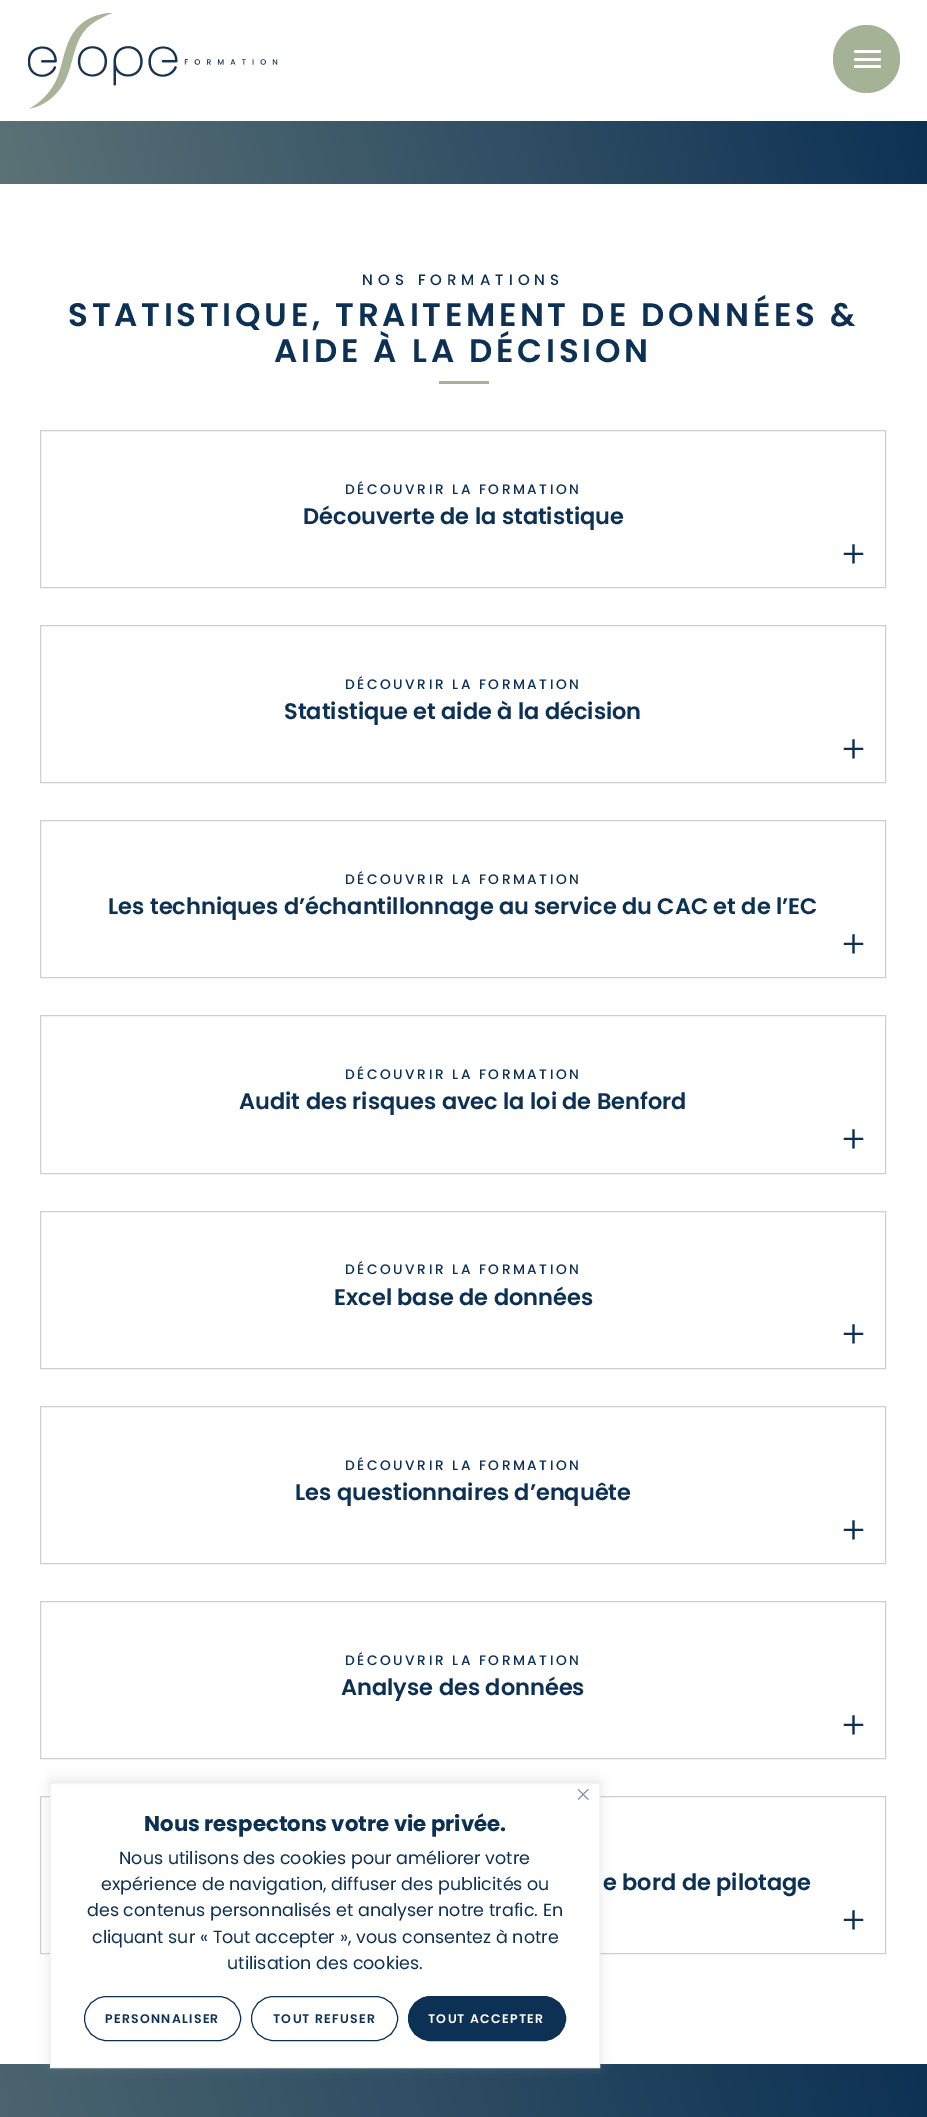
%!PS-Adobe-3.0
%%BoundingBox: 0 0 927 2117
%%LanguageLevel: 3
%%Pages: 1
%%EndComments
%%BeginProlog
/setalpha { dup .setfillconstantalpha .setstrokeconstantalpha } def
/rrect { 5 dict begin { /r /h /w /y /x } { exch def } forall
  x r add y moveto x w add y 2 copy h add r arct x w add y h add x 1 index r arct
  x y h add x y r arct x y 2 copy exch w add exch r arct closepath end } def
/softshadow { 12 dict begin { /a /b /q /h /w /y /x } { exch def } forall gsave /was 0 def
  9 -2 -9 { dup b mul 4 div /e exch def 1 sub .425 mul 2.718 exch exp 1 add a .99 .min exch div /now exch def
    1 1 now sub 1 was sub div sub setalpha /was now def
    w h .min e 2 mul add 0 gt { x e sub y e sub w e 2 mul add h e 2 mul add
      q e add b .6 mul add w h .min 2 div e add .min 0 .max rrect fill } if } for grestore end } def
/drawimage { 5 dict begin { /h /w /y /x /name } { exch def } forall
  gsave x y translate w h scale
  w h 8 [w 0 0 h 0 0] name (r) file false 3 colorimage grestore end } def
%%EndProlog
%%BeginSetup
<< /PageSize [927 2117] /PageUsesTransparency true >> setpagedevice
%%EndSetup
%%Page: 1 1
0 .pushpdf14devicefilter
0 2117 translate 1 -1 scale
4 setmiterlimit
1 setgray
0 0 927 2117 rectfill
(images/1.raw) 28 13 250 96 drawimage
0.647 0.698 0.584 setrgbcolor
833 25 67 68 33.5 rrect fill
1 setgray
854 50 27 3 1.5 rrect fill
854 58 27 3 1.5 rrect fill
854 65 27 3 1.5 rrect fill
gsave newpath 0 121 moveto 927 121 lineto 927 184 lineto 0 184 lineto closepath clip newpath
<< /ShadingType 2 /ColorSpace /DeviceRGB /Coords [901 27 27 278] /Extend [true true] /Function << /FunctionType 2 /Domain [0 1] /C0 [0.051 0.192 0.333] /C1 [0.357 0.447 0.463] /N 1 >> >> shfill grestore
0.647 0.698 0.584 setrgbcolor
439 381 50 3 rectfill
0.812 setgray
40.5 430.5 845 157 rectstroke
40.5 625.5 845 157 rectstroke
40.5 820.5 845 157 rectstroke
40.5 1015.5 845 158 rectstroke
40.5 1211.5 845 157 rectstroke
40.5 1406.5 845 157 rectstroke
40.5 1601.5 845 157 rectstroke
40.5 1796.5 845 157 rectstroke
gsave newpath 0 2064 moveto 927 2064 lineto 927 2117 lineto 0 2117 lineto closepath clip newpath
<< /ShadingType 2 /ColorSpace /DeviceRGB /Coords [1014 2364 -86 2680] /Extend [true true] /Function << /FunctionType 2 /Domain [0 1] /C0 [0.051 0.192 0.333] /C1 [0.357 0.447 0.463] /N 1 >> >> shfill grestore
0.675 0.671 0.671 setrgbcolor
50 1781 550 285 0 6 0.3 softshadow
1 setgray
newpath 50.5 1783.5 moveto 599.5 1783.5 lineto 599.5 2067.5 lineto 50.5 2067.5 lineto closepath gsave fill grestore
0.957 setgray
stroke
(images/2.raw) 578 1789 11 11 drawimage
0.051 0.192 0.333 setrgbcolor
84.5 1996.5 156 44 22 rrect stroke
251.5 1996.5 146 44 22 rrect stroke
408.5 1996.5 157 44 22 rrect gsave fill grestore
stroke
/Poppins-Medium [15 0 0 -15 0 0] selectfont
362 285 moveto 5 0 (NOS FORMATIONS) ashow
/Poppins-SemiBold [32.5 0 0 -32.5 0 0] selectfont
68 326 moveto 3.75 0 (STATISTIQUE, TRAITEMENT DE DONNÉES &) ashow
274 362 moveto 3.75 0 (AIDE À LA DÉCISION) ashow
/Poppins-Medium [13.75 0 0 -13.75 0 0] selectfont
345 494 moveto 2.5 0 (DÉCOUVRIR LA FORMATION) ashow
/Poppins-SemiBold [22.5 0 0 -22.5 0 0] selectfont
303 524 moveto (Découverte de la statistique) show
/Poppins-Light [38 0 0 -38 0 0] selectfont
841 568 moveto (+) show
/Poppins-Medium [13.75 0 0 -13.75 0 0] selectfont
345 689 moveto 2.5 0 (DÉCOUVRIR LA FORMATION) ashow
/Poppins-SemiBold [22.5 0 0 -22.5 0 0] selectfont
284 719 moveto (Statistique et aide à la décision) show
/Poppins-Light [38 0 0 -38 0 0] selectfont
841 763 moveto (+) show
/Poppins-Medium [13.75 0 0 -13.75 0 0] selectfont
345 884 moveto 2.5 0 (DÉCOUVRIR LA FORMATION) ashow
/Poppins-SemiBold [22.5 0 0 -22.5 0 0] selectfont
108 914 moveto (Les techniques d’échantillonnage au service du CAC et de l’EC) show
/Poppins-Light [38 0 0 -38 0 0] selectfont
841 958 moveto (+) show
/Poppins-Medium [13.75 0 0 -13.75 0 0] selectfont
345 1079 moveto 2.5 0 (DÉCOUVRIR LA FORMATION) ashow
/Poppins-SemiBold [22.5 0 0 -22.5 0 0] selectfont
239 1109 moveto (Audit des risques avec la loi de Benford) show
/Poppins-Light [38 0 0 -38 0 0] selectfont
841 1153 moveto (+) show
/Poppins-Medium [13.75 0 0 -13.75 0 0] selectfont
345 1274 moveto 2.5 0 (DÉCOUVRIR LA FORMATION) ashow
/Poppins-SemiBold [22.5 0 0 -22.5 0 0] selectfont
334 1305 moveto (Excel base de données) show
/Poppins-Light [38 0 0 -38 0 0] selectfont
841 1348 moveto (+) show
/Poppins-Medium [13.75 0 0 -13.75 0 0] selectfont
345 1470 moveto 2.5 0 (DÉCOUVRIR LA FORMATION) ashow
/Poppins-SemiBold [22.5 0 0 -22.5 0 0] selectfont
295 1500 moveto (Les questionnaires d’enquête) show
/Poppins-Light [38 0 0 -38 0 0] selectfont
841 1544 moveto (+) show
/Poppins-Medium [13.75 0 0 -13.75 0 0] selectfont
345 1665 moveto 2.5 0 (DÉCOUVRIR LA FORMATION) ashow
/Poppins-SemiBold [22.5 0 0 -22.5 0 0] selectfont
341 1695 moveto (Analyse des données) show
/Poppins-Light [38 0 0 -38 0 0] selectfont
841 1739 moveto (+) show
/Poppins-SemiBold [22.5 0 0 -22.5 0 0] selectfont
603 1890 moveto (e bord de pilotage) show
/Poppins-Light [38 0 0 -38 0 0] selectfont
841 1934 moveto (+) show
/Poppins-Bold [21.25 0 0 -21.25 0 0] selectfont
144 1831 moveto (Nous respectons votre vie privée.) show
/Poppins-Regular [17.5 0 0 -17.5 0 0] selectfont
119 1864 moveto (Nous utilisons des cookies pour améliorer votre) show
101 1890 moveto (expérience de navigation, diffuser des publicités ou) show
87 1916 moveto (des contenus personnalisés et analyser notre trafic. En) show
92 1943 moveto (cliquant sur « Tout accepter », vous consentez à notre) show
227 1969 moveto (utilisation des cookies.) show
/Poppins-SemiBold [12.5 0 0 -12.5 0 0] selectfont
105 2023 moveto 1.25 0 (PERSONNALISER) ashow
273 2023 moveto 1.25 0 (TOUT REFUSER) ashow
1 setgray
428 2023 moveto 1.25 0 (TOUT ACCEPTER) ashow
.poppdf14devicefilter showpage
%%EOF
